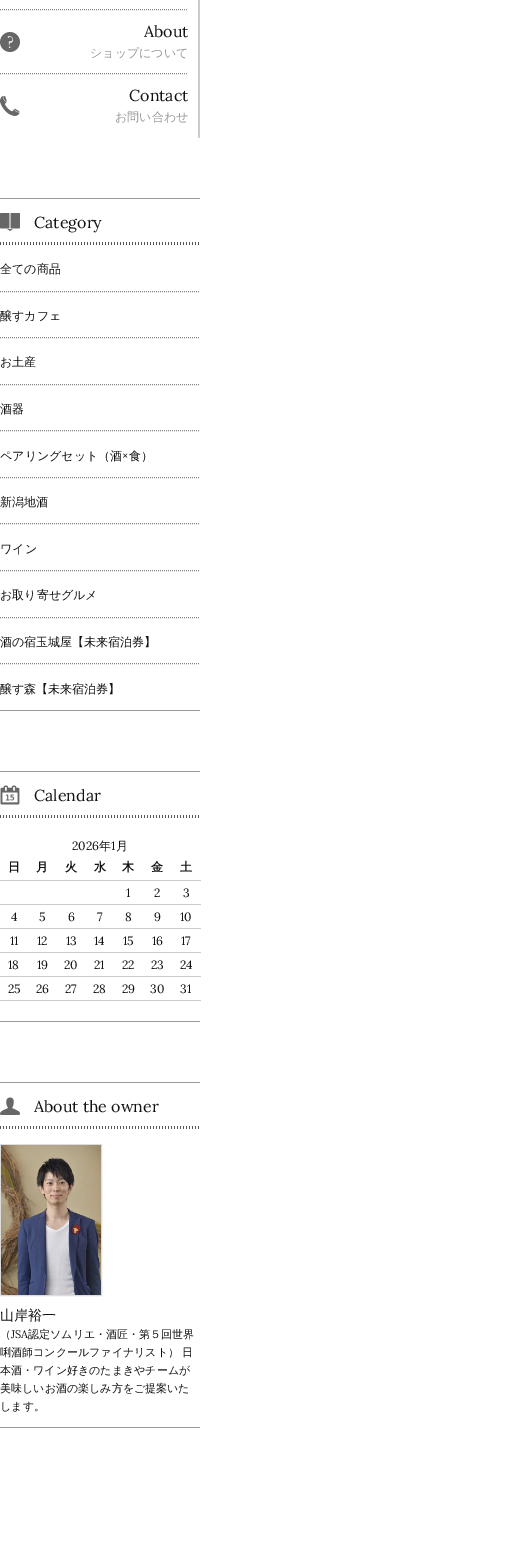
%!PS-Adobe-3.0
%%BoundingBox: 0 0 517 1544
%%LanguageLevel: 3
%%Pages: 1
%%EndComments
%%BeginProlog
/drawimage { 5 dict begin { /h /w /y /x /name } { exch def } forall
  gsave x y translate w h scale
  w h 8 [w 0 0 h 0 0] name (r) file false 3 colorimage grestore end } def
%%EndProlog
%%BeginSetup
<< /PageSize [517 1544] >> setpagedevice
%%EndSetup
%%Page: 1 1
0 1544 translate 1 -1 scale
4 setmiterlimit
1 setgray
0 0 517 1544 rectfill
0.8 setgray
198 0 2 138 rectfill
0.514 setgray
[1 1] 0 setdash
newpath 0 9.5 moveto 188 9.5 lineto stroke
(images/1.raw) 0 32 20 20 drawimage
newpath 0 73.5 moveto 188 73.5 lineto stroke
(images/2.raw) 0 96 20 20 drawimage
0.6 setgray
0 198 200 1 rectfill
0 710 200 1 rectfill
(images/3.raw) 0 242 199 3 drawimage
(images/4.raw) 0 213 20 18 drawimage
0.514 setgray
newpath 0 291.5 moveto 200 291.5 lineto stroke
newpath 0 337.5 moveto 200 337.5 lineto stroke
newpath 0 384.5 moveto 200 384.5 lineto stroke
newpath 0 430.5 moveto 200 430.5 lineto stroke
newpath 0 477.5 moveto 200 477.5 lineto stroke
newpath 0 523.5 moveto 200 523.5 lineto stroke
newpath 0 570.5 moveto 200 570.5 lineto stroke
newpath 0 617.5 moveto 200 617.5 lineto stroke
newpath 0 663.5 moveto 200 663.5 lineto stroke
0.6 setgray
0 771 200 1 rectfill
0 1021 200 1 rectfill
(images/3.raw) 0 815 199 3 drawimage
(images/5.raw) 0 785 20 20 drawimage
0.8 setgray
0 880 201 1 rectfill
0 904 201 1 rectfill
0 928 201 1 rectfill
0 952 201 1 rectfill
0 976 201 1 rectfill
0 1000 201 1 rectfill
0.6 setgray
0 1082 200 1 rectfill
0 1427 200 1 rectfill
(images/3.raw) 0 1126 199 3 drawimage
(images/6.raw) 0 1097 20 18 drawimage
0.867 setgray
[] 0 setdash
0.5 1144.5 101 151 rectstroke
(images/7.raw) 1 1145 100 150 drawimage
/Lora-Regular [16 0 0 -16 0 0] selectfont
0.067 setgray
144 37 moveto (About) show
/WenQuanYiZenHei-Medium [12 0 0 -12 0 0] selectfont
0.6 setgray
90 57 moveto (ショップについて) show
/Lora-Regular [16 0 0 -16 0 0] selectfont
0.067 setgray
129 101 moveto (Contact) show
/WenQuanYiZenHei-Medium [12 0 0 -12 0 0] selectfont
0.6 setgray
115 121 moveto (お問い合わせ) show
/Lora-Regular [16 0 0 -16 0 0] selectfont
0.067 setgray
34 228 moveto (Category) show
/WenQuanYiZenHei-Medium [12 0 0 -12 0 0] selectfont
0 273 moveto (全ての商品) show
0 320 moveto (醸すカフェ) show
0 366 moveto (お土産) show
0 413 moveto (酒器) show
0 460 moveto (ペアリングセット（酒) show
/Lora-Regular [12 0 0 -12 0 0] selectfont
122 460 moveto (×) show
/WenQuanYiZenHei-Medium [12 0 0 -12 0 0] selectfont
129 460 moveto (食）) show
0 506 moveto (新潟地酒) show
0 553 moveto (ワイン) show
0 599 moveto (お取り寄せグルメ) show
0 646 moveto (酒の宿玉城屋【未来宿泊券】) show
0 693 moveto (醸す森【未来宿泊券】) show
/Lora-Regular [16 0 0 -16 0 0] selectfont
34 801 moveto (Calendar) show
/Lora-Regular [12 0 0 -12 0 0] selectfont
72 850 moveto (2026) show
/WenQuanYiZenHei-Medium [12 0 0 -12 0 0] selectfont
99 850 moveto (年) show
/Lora-Regular [12 0 0 -12 0 0] selectfont
111 850 moveto (1) show
/WenQuanYiZenHei-Medium [12 0 0 -12 0 0] selectfont
116 850 moveto (月) show
/WenQuanYiZenHei-Bold [12 0 0 -12 0 0] selectfont
8 871 moveto (日) show
36 871 moveto (月) show
65 871 moveto (火) show
94 871 moveto (水) show
122 871 moveto (木) show
151 871 moveto (金) show
180 871 moveto (土) show
/Lora-Regular [12 0 0 -12 0 0] selectfont
126 897 moveto (1) show
154 897 moveto (2) show
183 897 moveto (3) show
11 921 moveto (4) show
39 921 moveto (5) show
68 921 moveto (6) show
97 921 moveto (7) show
125 921 moveto (8) show
154 921 moveto (9) show
180 921 moveto (10) show
10 945 moveto (11) show
37 945 moveto (12) show
66 945 moveto (13) show
94 945 moveto (14) show
123 945 moveto (15) show
152 945 moveto (16) show
181 945 moveto (17) show
8 969 moveto (18) show
37 969 moveto (19) show
64 969 moveto (20) show
94 969 moveto (21) show
122 969 moveto (22) show
151 969 moveto (23) show
180 969 moveto (24) show
8 993 moveto (25) show
36 993 moveto (26) show
65 993 moveto (27) show
93 993 moveto (28) show
122 993 moveto (29) show
150 993 moveto (30) show
180 993 moveto (31) show
/Lora-Regular [16 0 0 -16 0 0] selectfont
34 1112 moveto (About the owner) show
/WenQuanYiZenHei-Medium [14 0 0 -14 0 0] selectfont
0 1320 moveto (山岸裕一) show
/WenQuanYiZenHei-Medium [11 0 0 -11 0 0] selectfont
0 1338 moveto (（) show
/Lora-Regular [11 0 0 -11 0 0] selectfont
11 1338 moveto (JSA) show
/WenQuanYiZenHei-Medium [11 0 0 -11 0 0] selectfont
28 1338 moveto (認定ソムリエ・酒匠・第５回世界) show
0 1356 moveto (唎酒師コンクールファイナリスト）) show
182 1356 moveto (日) show
0 1374 moveto (本酒・ワイン好きのたまきやチームが) show
0 1392 moveto (美味しいお酒の楽しみ方をご提案いた) show
0 1410 moveto (します。) show
showpage
%%EOF
